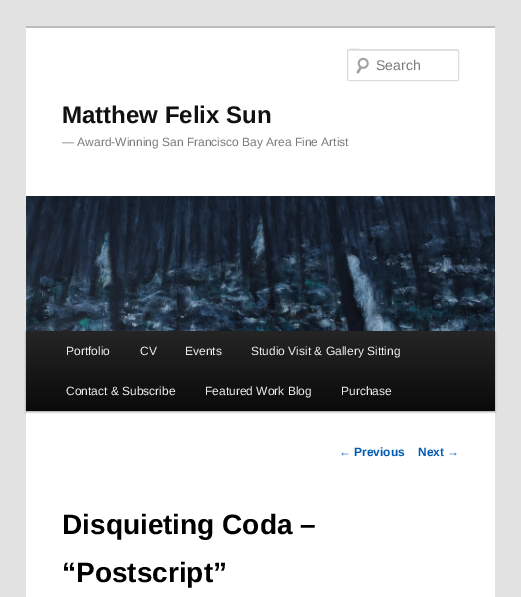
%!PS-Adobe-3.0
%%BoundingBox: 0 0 521 597
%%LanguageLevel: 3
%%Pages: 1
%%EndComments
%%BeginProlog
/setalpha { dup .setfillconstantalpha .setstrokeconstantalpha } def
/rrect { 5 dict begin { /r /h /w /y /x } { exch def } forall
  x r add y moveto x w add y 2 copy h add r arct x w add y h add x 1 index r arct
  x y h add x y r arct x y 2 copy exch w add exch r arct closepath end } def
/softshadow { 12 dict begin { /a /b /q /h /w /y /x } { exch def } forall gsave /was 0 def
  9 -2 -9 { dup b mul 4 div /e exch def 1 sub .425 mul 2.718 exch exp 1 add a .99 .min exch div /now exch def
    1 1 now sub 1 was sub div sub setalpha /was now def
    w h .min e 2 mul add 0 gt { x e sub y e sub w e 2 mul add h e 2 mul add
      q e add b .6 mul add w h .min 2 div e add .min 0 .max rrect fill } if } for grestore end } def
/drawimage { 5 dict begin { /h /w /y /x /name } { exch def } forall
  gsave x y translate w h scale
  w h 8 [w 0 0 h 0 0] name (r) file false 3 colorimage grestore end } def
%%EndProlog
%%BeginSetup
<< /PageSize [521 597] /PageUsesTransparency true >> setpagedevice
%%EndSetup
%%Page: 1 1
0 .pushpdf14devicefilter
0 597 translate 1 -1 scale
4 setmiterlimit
0.886 setgray
0 0 521 597 rectfill
1 setgray
26 28 469 569 rectfill
0.733 setgray
26 26 469 2 rectfill
(images/1.raw) 356 57 13 17 drawimage
0.902 setgray
newpath 349 51 moveto 458 51 lineto 458 52 lineto 457 50 lineto 367 50 lineto 363 50 348 45 348 52 curveto 348 51 348 51 349 51 curveto closepath fill
0.867 setgray
347.5 49.5 111 31 1.5 rrect stroke
0 setgray
26 332 469 80 0 1 0.4 softshadow
(images/2.raw) 26 196 469 135 drawimage
gsave newpath 26 331 moveto 495 331 lineto 495 411 lineto 26 411 lineto closepath clip newpath
<< /ShadingType 2 /ColorSpace /DeviceRGB /Coords [261 331 261 411] /Extend [true true] /Function << /FunctionType 2 /Domain [0 1] /C0 [0.145 0.145 0.145] /C1 [0.039 0.039 0.039] /N 1 >> >> shfill grestore
/LiberationSans-Regular [14 0 0 -14 0 0] selectfont
0.478 setgray
376 70 moveto (Search) show
/LiberationSans-Bold [24 0 0 -24 0 0] selectfont
0.067 setgray
62 123 moveto (Matthew Felix Sun) show
/LiberationSans-Regular [12 0 0 -12 0 0] selectfont
0.478 setgray
62 146 moveto (— Award-Winning San Francisco Bay Area Fine Artist) show
0.933 setgray
66 355 moveto (Portfolio) show
140 355 moveto (CV) show
185 355 moveto (Events) show
251 355 moveto (Studio Visit & Gallery Sitting) show
66 395 moveto (Contact & Subscribe) show
205 395 moveto (Featured Work Blog) show
341 395 moveto (Purchase) show
0 0.361 0.702 setrgbcolor
339 456 moveto (←) show
/LiberationSans-Bold [12 0 0 -12 0 0] selectfont
354 456 moveto (Previous) show
418 456 moveto (Next) show
/LiberationSans-Regular [12 0 0 -12 0 0] selectfont
447 456 moveto (→) show
/LiberationSans-Bold [28 0 0 -28 0 0] selectfont
0 setgray
62 534 moveto (Disquieting Coda –) show
62 582 moveto (“Postscript”) show
.poppdf14devicefilter showpage
%%EOF
